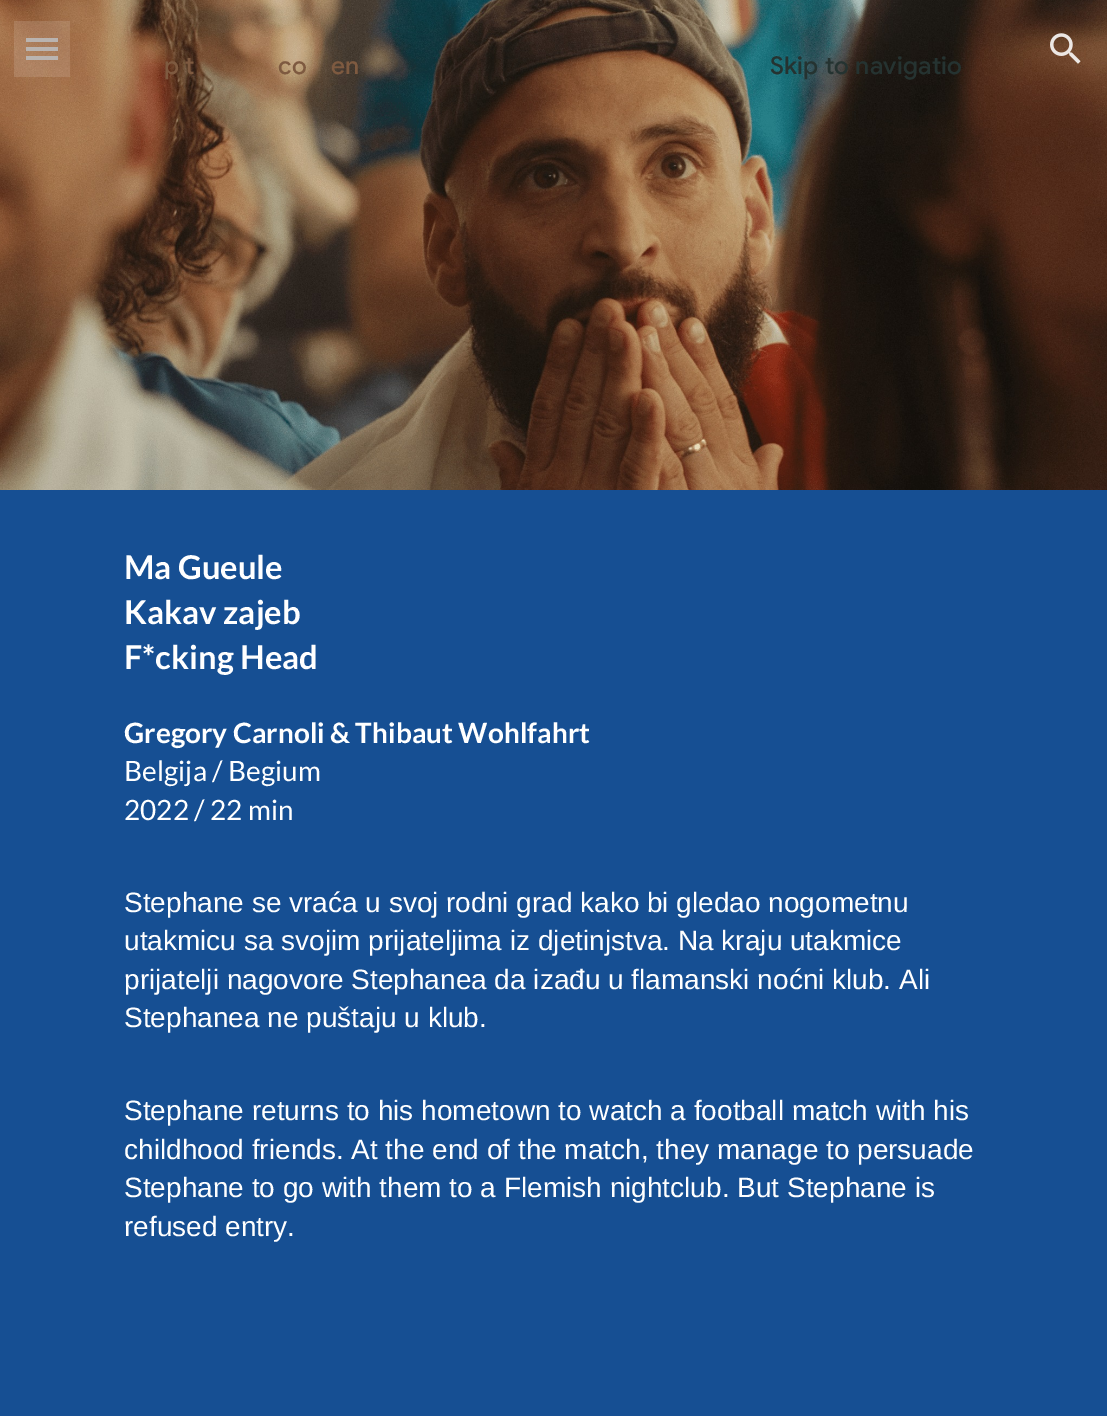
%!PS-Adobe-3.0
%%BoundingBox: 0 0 1107 1416
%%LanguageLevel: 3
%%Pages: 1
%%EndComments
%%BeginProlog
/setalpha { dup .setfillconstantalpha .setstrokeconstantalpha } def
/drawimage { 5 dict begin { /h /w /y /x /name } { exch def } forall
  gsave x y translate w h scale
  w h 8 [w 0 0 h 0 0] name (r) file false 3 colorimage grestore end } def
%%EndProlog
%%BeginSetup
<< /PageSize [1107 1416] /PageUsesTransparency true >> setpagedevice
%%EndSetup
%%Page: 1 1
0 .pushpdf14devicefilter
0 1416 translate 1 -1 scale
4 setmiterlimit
1 setgray
0 0 1107 1416 rectfill
(images/2.raw) 0 0 1107 490 drawimage
0.88 setalpha
0.698 setgray
26 38 32 4 rectfill
26 47 32 4 rectfill
26 56 32 4 rectfill
0.12 setalpha
1 setgray
14 21 56 56 rectfill
1 setalpha
(images/1.raw) 1050 33 31 31 drawimage
0.086 0.31 0.576 setrgbcolor
0 490 1107 926 rectfill
/GoogleSans-Medium [24.5 0 0 -24.5 0 0] selectfont
0.494 0.353 0.251 setrgbcolor
164 74 moveto 0.25 0 (p t) ashow
278 74 moveto 0.25 0 (co) ashow
331 74 moveto 0.25 0 (en) ashow
0.145 0.2 0.192 setrgbcolor
770 74 moveto 0.25 0 (Skip to navigatio) ashow
/Lato-Bold [32.75 0 0 -32.75 0 0] selectfont
1 setgray
124 579 moveto (Ma Gueule) show
124 624 moveto (Kakav zajeb) show
124 669 moveto (F*cking Head) show
/Lato-Bold [28 0 0 -28 0 0] selectfont
124 743 moveto (Gregory Carnoli & Thibaut Wohlfahrt) show
/Lato-Regular [28 0 0 -28 0 0] selectfont
124 781 moveto (Belgija / Begium) show
124 820 moveto (2022 / 22 min) show
/LiberationSans-Regular [28 0 0 -28 0 0] selectfont
124 912 moveto (Stephane se vraća u svoj rodni grad kako bi gledao nogometnu) show
124 950 moveto (utakmicu sa svojim prijateljima iz djetinjstva. Na kraju utakmice) show
124 989 moveto (prijatelji nagovore Stephanea da izađu u flamanski noćni klub. Ali) show
124 1027 moveto (Stephanea ne puštaju u klub.) show
124 1120 moveto (Stephane returns to his hometown to watch a football match with his) show
124 1159 moveto (childhood friends. At the end of the match, they manage to persuade) show
124 1197 moveto (Stephane to go with them to a Flemish nightclub. But Stephane is) show
124 1236 moveto (refused entry.) show
.poppdf14devicefilter showpage
%%EOF
